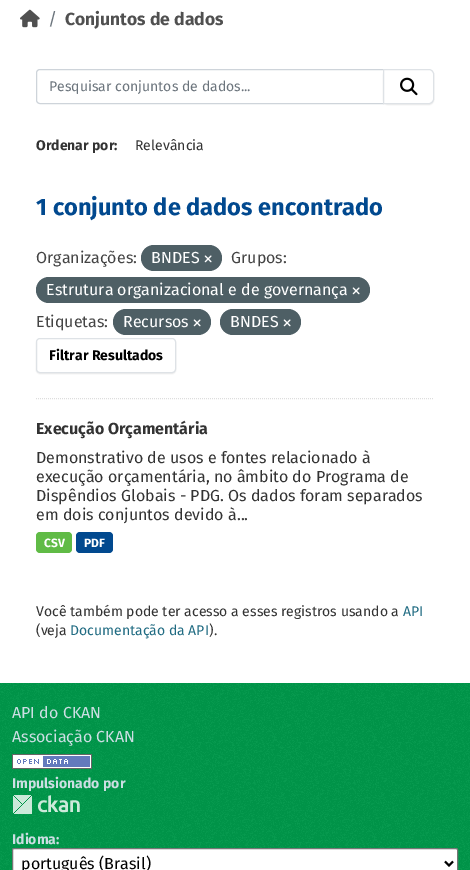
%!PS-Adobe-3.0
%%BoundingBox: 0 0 470 870
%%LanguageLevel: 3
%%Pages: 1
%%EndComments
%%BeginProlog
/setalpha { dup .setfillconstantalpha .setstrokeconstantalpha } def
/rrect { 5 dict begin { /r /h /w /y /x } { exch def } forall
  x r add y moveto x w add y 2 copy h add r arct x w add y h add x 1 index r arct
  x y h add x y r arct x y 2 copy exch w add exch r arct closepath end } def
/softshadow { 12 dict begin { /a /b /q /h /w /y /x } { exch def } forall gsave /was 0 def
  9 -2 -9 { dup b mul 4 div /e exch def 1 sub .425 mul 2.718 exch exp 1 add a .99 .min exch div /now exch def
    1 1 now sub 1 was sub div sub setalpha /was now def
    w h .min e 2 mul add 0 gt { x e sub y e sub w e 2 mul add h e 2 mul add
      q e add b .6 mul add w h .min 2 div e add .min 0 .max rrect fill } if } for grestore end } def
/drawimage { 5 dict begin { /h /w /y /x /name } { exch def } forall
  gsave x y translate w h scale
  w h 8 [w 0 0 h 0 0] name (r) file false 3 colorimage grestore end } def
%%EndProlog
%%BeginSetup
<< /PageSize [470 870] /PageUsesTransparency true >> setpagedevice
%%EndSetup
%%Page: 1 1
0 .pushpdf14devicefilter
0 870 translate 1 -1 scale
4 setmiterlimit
1 setgray
0 0 470 870 rectfill
(images/1.raw) 20 9 20 19 drawimage
0.867 setgray
[1 1] 0 setdash
newpath 36 398.5 moveto 434 398.5 lineto stroke
0.808 0.831 0.855 setrgbcolor
[] 0 setdash
newpath 40 69.5 moveto 383.5 69.5 lineto 383.5 103.5 lineto 40 103.5 lineto 38 103.5 36.5 102 36.5 100 curveto 36.5 73 lineto 36.5 71 38 69.5 40 69.5 curveto closepath stroke
0 setgray
383 70 51 35 5 0.5 0.07 softshadow
1 setgray
newpath 383.5 69.5 moveto 429 69.5 lineto 431.5 69.5 433.5 71.5 433.5 74 curveto 433.5 99 lineto 433.5 101.5 431.5 103.5 429 103.5 curveto 383.5 103.5 lineto closepath gsave fill grestore
0.871 0.886 0.902 setrgbcolor
stroke
(images/2.raw) 400 77 18 19 drawimage
0.306 0.373 0.396 setrgbcolor
141 245 81 26 13 rrect fill
(images/3.raw) 204 255 8 8 drawimage
36 277 334 26 13 rrect fill
(images/3.raw) 352 287 8 8 drawimage
113 309 98 26 13 rrect fill
(images/3.raw) 193 319 8 8 drawimage
220 309 81 26 13 rrect fill
(images/3.raw) 283 319 8 8 drawimage
0 setgray
36 339 140 35 4 0.5 0.07 softshadow
1 setgray
36.5 338.5 139 34 3.5 rrect gsave fill grestore
0.871 0.886 0.902 setrgbcolor
stroke
0.376 0.733 0.275 setrgbcolor
36 532 36 21 4 rrect fill
0.004 0.286 0.561 setrgbcolor
76 532 37 21 4 rrect fill
0 0.596 0.29 setrgbcolor
0 683 470 187 rectfill
(images/4.raw) 0 683 470 187 drawimage
(images/5.raw) 12 754 80 15 drawimage
(images/6.raw) 13 795 67 19 drawimage
1 setgray
12.5 848.5 445 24 1.5 rrect gsave fill grestore
0.463 setgray
stroke
0 setgray
2 setlinewidth
newpath 445 861.5 moveto 449 865.5 lineto 453 861.5 lineto stroke
/FiraSans-Regular [17.5 0 0 -17.5 0 0] selectfont
0.424 0.459 0.49 setrgbcolor
48 25 moveto (/) show
/FiraSans-Bold [17.5 0 0 -17.5 0 0] selectfont
0.314 setgray
65 25 moveto (Conjuntos de dados) show
/FiraSans-Regular [14 0 0 -14 0 0] selectfont
0.424 0.459 0.49 setrgbcolor
49 91 moveto (Pesquisar conjuntos de dados...) show
/FiraSans-Bold [14 0 0 -14 0 0] selectfont
0.2 setgray
36 150 moveto (Ordenar por:) show
/FiraSans-Regular [14 0 0 -14 0 0] selectfont
135 150 moveto (Relevância) show
/FiraSans-Bold [23.6 0 0 -23.6 0 0] selectfont
0.004 0.286 0.561 setrgbcolor
36 215 moveto (1 conjunto de dados encontrado) show
/FiraSans-Regular [16 0 0 -16 0 0] selectfont
0.267 setgray
36 263 moveto (Organizações:) show
1 setgray
151 263 moveto (BNDES) show
0.267 setgray
231 263 moveto (Grupos:) show
1 setgray
46 295 moveto (Estrutura organizacional e de governança) show
0.267 setgray
36 327 moveto (Etiquetas:) show
1 setgray
123 327 moveto (Recursos) show
230 327 moveto (BNDES) show
/FiraSans-Bold [14 0 0 -14 0 0] selectfont
0 setgray
49 360 moveto (Filtrar Resultados) show
/FiraSans-Bold [16 0 0 -16 0 0] selectfont
0.2 setgray
36 434 moveto (Execução Orçamentária) show
/FiraSans-Regular [16 0 0 -16 0 0] selectfont
36 463 moveto (Demonstrativo de usos e fontes relacionado à) show
36 482 moveto (execução orçamentária, no âmbito do Programa de) show
36 501 moveto (Dispêndios Globais - PDG. Os dados foram separados) show
36 520 moveto (em dois conjuntos devido à...) show
/FiraSans-Bold [12 0 0 -12 0 0] selectfont
1 setgray
44 547 moveto (CSV) show
84 547 moveto (PDF) show
/FiraSans-Regular [14 0 0 -14 0 0] selectfont
0.2 setgray
36 616 moveto (Você também pode ter acesso a esses registros usando a) show
0.125 0.42 0.51 setrgbcolor
403 616 moveto (API) show
0.2 setgray
36 635 moveto (\(veja) show
0.125 0.42 0.51 setrgbcolor
70 635 moveto (Documentação da API) show
0.2 setgray
209 635 moveto (\).) show
/FiraSans-Regular [16 0 0 -16 0 0] selectfont
0.8 0.871 0.89 setrgbcolor
12 718 moveto (API do CKAN) show
12 742 moveto (Associação CKAN) show
/FiraSans-Bold [14 0 0 -14 0 0] selectfont
12 788 moveto (Impulsionado por) show
12 844 moveto (Idioma:) show
/FiraSans-Regular [16 0 0 -16 0 0] selectfont
0 setgray
21 869 moveto (português \(Brasil\)) show
.poppdf14devicefilter showpage
%%EOF
